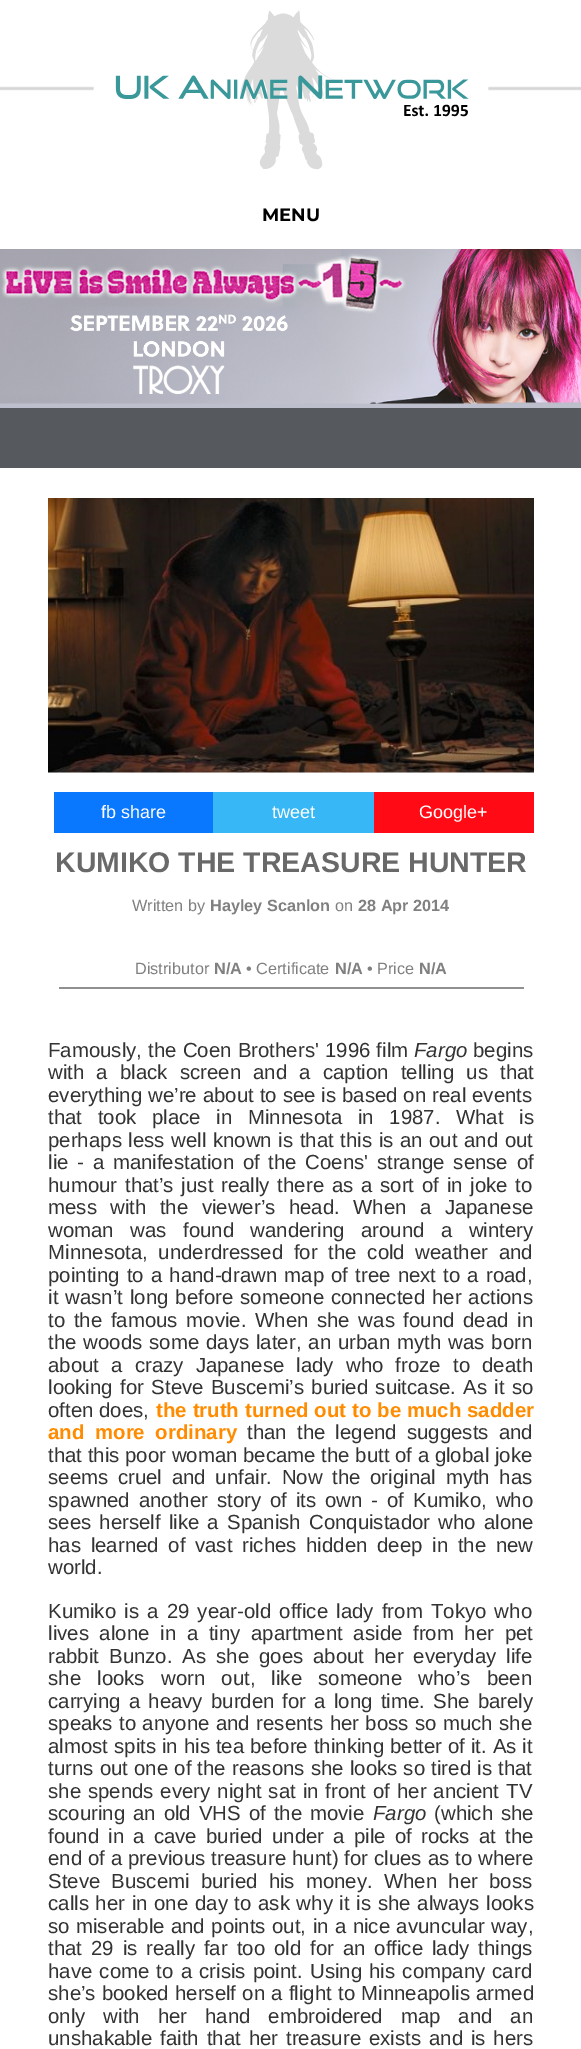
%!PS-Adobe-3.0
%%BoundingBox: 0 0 581 2049
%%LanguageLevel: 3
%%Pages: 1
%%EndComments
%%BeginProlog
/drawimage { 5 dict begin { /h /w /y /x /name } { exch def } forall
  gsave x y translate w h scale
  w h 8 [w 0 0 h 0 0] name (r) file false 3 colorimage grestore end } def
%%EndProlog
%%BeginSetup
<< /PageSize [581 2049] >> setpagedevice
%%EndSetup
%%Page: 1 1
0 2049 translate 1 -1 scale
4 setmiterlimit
0.745 0.749 0.804 setrgbcolor
0 0 581 2049 rectfill
1 setgray
0 0 581 249 rectfill
(images/1.raw) 0 86 581 5 drawimage
(images/2.raw) 93 10 396 160 drawimage
(images/3.raw) 0 249 581 155 drawimage
0 468 581 1581 rectfill
0.337 0.349 0.365 setrgbcolor
0 408 581 60 rectfill
(images/4.raw) 48 498 486 275 drawimage
0.039 0.467 1 setrgbcolor
54 792 159 41 rectfill
0.216 0.718 0.961 setrgbcolor
213 792 161 41 rectfill
1 0.039 0.082 setrgbcolor
374 792 160 41 rectfill
0.565 setgray
59 987 465 2 rectfill
/Montserrat-Bold [18 0 0 -18 0 0] selectfont
0 setgray
262 221 moveto (MENU) show
/LiberationSans-Regular [18 0 0 -18 0 0] selectfont
1 setgray
101 818 moveto (fb share) show
272 818 moveto (tweet) show
419 818 moveto (Google+) show
/LiberationSans-Bold [28.5 0 0 -28.5 0 0] selectfont
0.412 setgray
55 872 moveto (KUMIKO THE TREASURE HUNTER) show
/LiberationSans-Regular [16.25 0 0 -16.25 0 0] selectfont
0.502 setgray
132 911 moveto (Written by) show
/LiberationSans-Bold [16.25 0 0 -16.25 0 0] selectfont
210 911 moveto (Hayley Scanlon) show
/LiberationSans-Regular [16.25 0 0 -16.25 0 0] selectfont
335 911 moveto (on) show
/LiberationSans-Bold [16.25 0 0 -16.25 0 0] selectfont
358 911 moveto (28 Apr 2014) show
/LiberationSans-Regular [16.25 0 0 -16.25 0 0] selectfont
135 974 moveto (Distributor) show
/LiberationSans-Bold [16.25 0 0 -16.25 0 0] selectfont
214 974 moveto (N/A) show
/LiberationSans-Regular [16.25 0 0 -16.25 0 0] selectfont
246 974 moveto (• Certificate) show
/LiberationSans-Bold [16.25 0 0 -16.25 0 0] selectfont
335 974 moveto (N/A) show
/LiberationSans-Regular [16.25 0 0 -16.25 0 0] selectfont
367 974 moveto (• Price) show
/LiberationSans-Bold [16.25 0 0 -16.25 0 0] selectfont
419 974 moveto (N/A) show
/LiberationSans-Regular [20.4 0 0 -20.4 0 0] selectfont
0.2 setgray
48 1057 moveto 0.5 0 32 (Famously, the Coen Brothers' 1996 film) widthshow
/LiberationSans-Italic [20.4 0 0 -20.4 0 0] selectfont
414 1057 moveto (Fargo) show
/LiberationSans-Regular [20.4 0 0 -20.4 0 0] selectfont
473 1057 moveto (begins) show
48 1079 moveto 6.5 0 32 (with a black screen and a caption telling us that) widthshow
48 1102 moveto 0.25 0 32 (everything we’re about to see is based on real events) widthshow
48 1124 moveto 10 0 32 (that took place in Minnesota in 1987. What is) widthshow
48 1147 moveto 0.9 0 32 (perhaps less well known is that this is an out and out) widthshow
48 1169 moveto 3 0 32 (lie - a manifestation of the Coens' strange sense of) widthshow
48 1192 moveto 2.1 0 32 (humour that’s just really there as a sort of in joke to) widthshow
48 1214 moveto 7.75 0 32 (mess with the viewer’s head. When a Japanese) widthshow
48 1237 moveto 10.75 0 32 (woman was found wandering around a wintery) widthshow
48 1259 moveto 5 0 32 (Minnesota, underdressed for the cold weather and) widthshow
48 1282 moveto 1.5 0 32 (pointing to a hand-drawn map of tree next to a road,) widthshow
48 1304 moveto 1.25 0 32 (it wasn’t long before someone connected her actions) widthshow
48 1327 moveto 3 0 32 (to the famous movie. When she was found dead in) widthshow
48 1349 moveto 1.25 0 32 (the woods some days later, an urban myth was born) widthshow
48 1372 moveto 6.5 0 32 (about a crazy Japanese lady who froze to death) widthshow
48 1394 moveto 1.75 0 32 (looking for Steve Buscemi’s buried suitcase. As it so) widthshow
48 1417 moveto (often does,) show
/LiberationSans-Bold [20.4 0 0 -20.4 0 0] selectfont
1 0.549 0 setrgbcolor
156 1417 moveto 0.25 0 32 (the truth turned out to be much sadder) widthshow
48 1439 moveto 5 0 32 (and more ordinary) widthshow
/LiberationSans-Regular [20.4 0 0 -20.4 0 0] selectfont
0.2 setgray
247 1439 moveto 4.5 0 32 (than the legend suggests and) widthshow
48 1462 moveto (that this poor woman became the butt of a global joke) show
48 1484 moveto 4 0 32 (seems cruel and unfair. Now the original myth has) widthshow
48 1507 moveto 3.25 0 32 (spawned another story of its own - of Kumiko, who) widthshow
48 1529 moveto 2.5 0 32 (sees herself like a Spanish Conquistador who alone) widthshow
48 1552 moveto 4 0 32 (has learned of vast riches hidden deep in the new) widthshow
48 1574 moveto (world.) show
48 1618 moveto 2.5 0 32 (Kumiko is a 29 year-old office lady from Tokyo who) widthshow
48 1640 moveto 5 0 32 (lives alone in a tiny apartment aside from her pet) widthshow
48 1663 moveto 4.25 0 32 (rabbit Bunzo. As she goes about her everyday life) widthshow
48 1685 moveto 10.5 0 32 (she looks worn out, like someone who’s been) widthshow
48 1708 moveto 2.5 0 32 (carrying a heavy burden for a long time. She barely) widthshow
48 1730 moveto 0.75 0 32 (speaks to anyone and resents her boss so much she) widthshow
48 1753 moveto 0.25 0 32 (almost spits in his tea before thinking better of it. As it) widthshow
48 1775 moveto 0.5 0 32 (turns out one of the reasons she looks so tired is that) widthshow
48 1798 moveto 1.25 0 32 (she spends every night sat in front of her ancient TV) widthshow
48 1820 moveto 2.25 0 32 (scouring an old VHS of the movie) widthshow
/LiberationSans-Italic [20.4 0 0 -20.4 0 0] selectfont
373 1820 moveto (Fargo) show
/LiberationSans-Regular [20.4 0 0 -20.4 0 0] selectfont
434 1820 moveto 2.25 0 32 (\(which she) widthshow
48 1843 moveto 3.5 0 32 (found in a cave buried under a pile of rocks at the) widthshow
48 1865 moveto 0.25 0 32 (end of a previous treasure hunt\) for clues as to where) widthshow
48 1888 moveto 5.5 0 32 (Steve Buscemi buried his money. When her boss) widthshow
48 1910 moveto 1 0 32 (calls her in one day to ask why it is she always looks) widthshow
48 1933 moveto 0.75 0 32 (so miserable and points out, in a nice avuncular way,) widthshow
48 1955 moveto 3.25 0 32 (that 29 is really far too old for an office lady things) widthshow
48 1978 moveto 1.5 0 32 (have come to a crisis point. Using his company card) widthshow
48 2000 moveto 0.5 0 32 (she’s booked herself on a flight to Minneapolis armed) widthshow
48 2023 moveto 12.25 0 32 (only with her hand embroidered map and an) widthshow
48 2045 moveto 2.25 0 32 (unshakable faith that her treasure exists and is hers) widthshow
showpage
%%EOF
